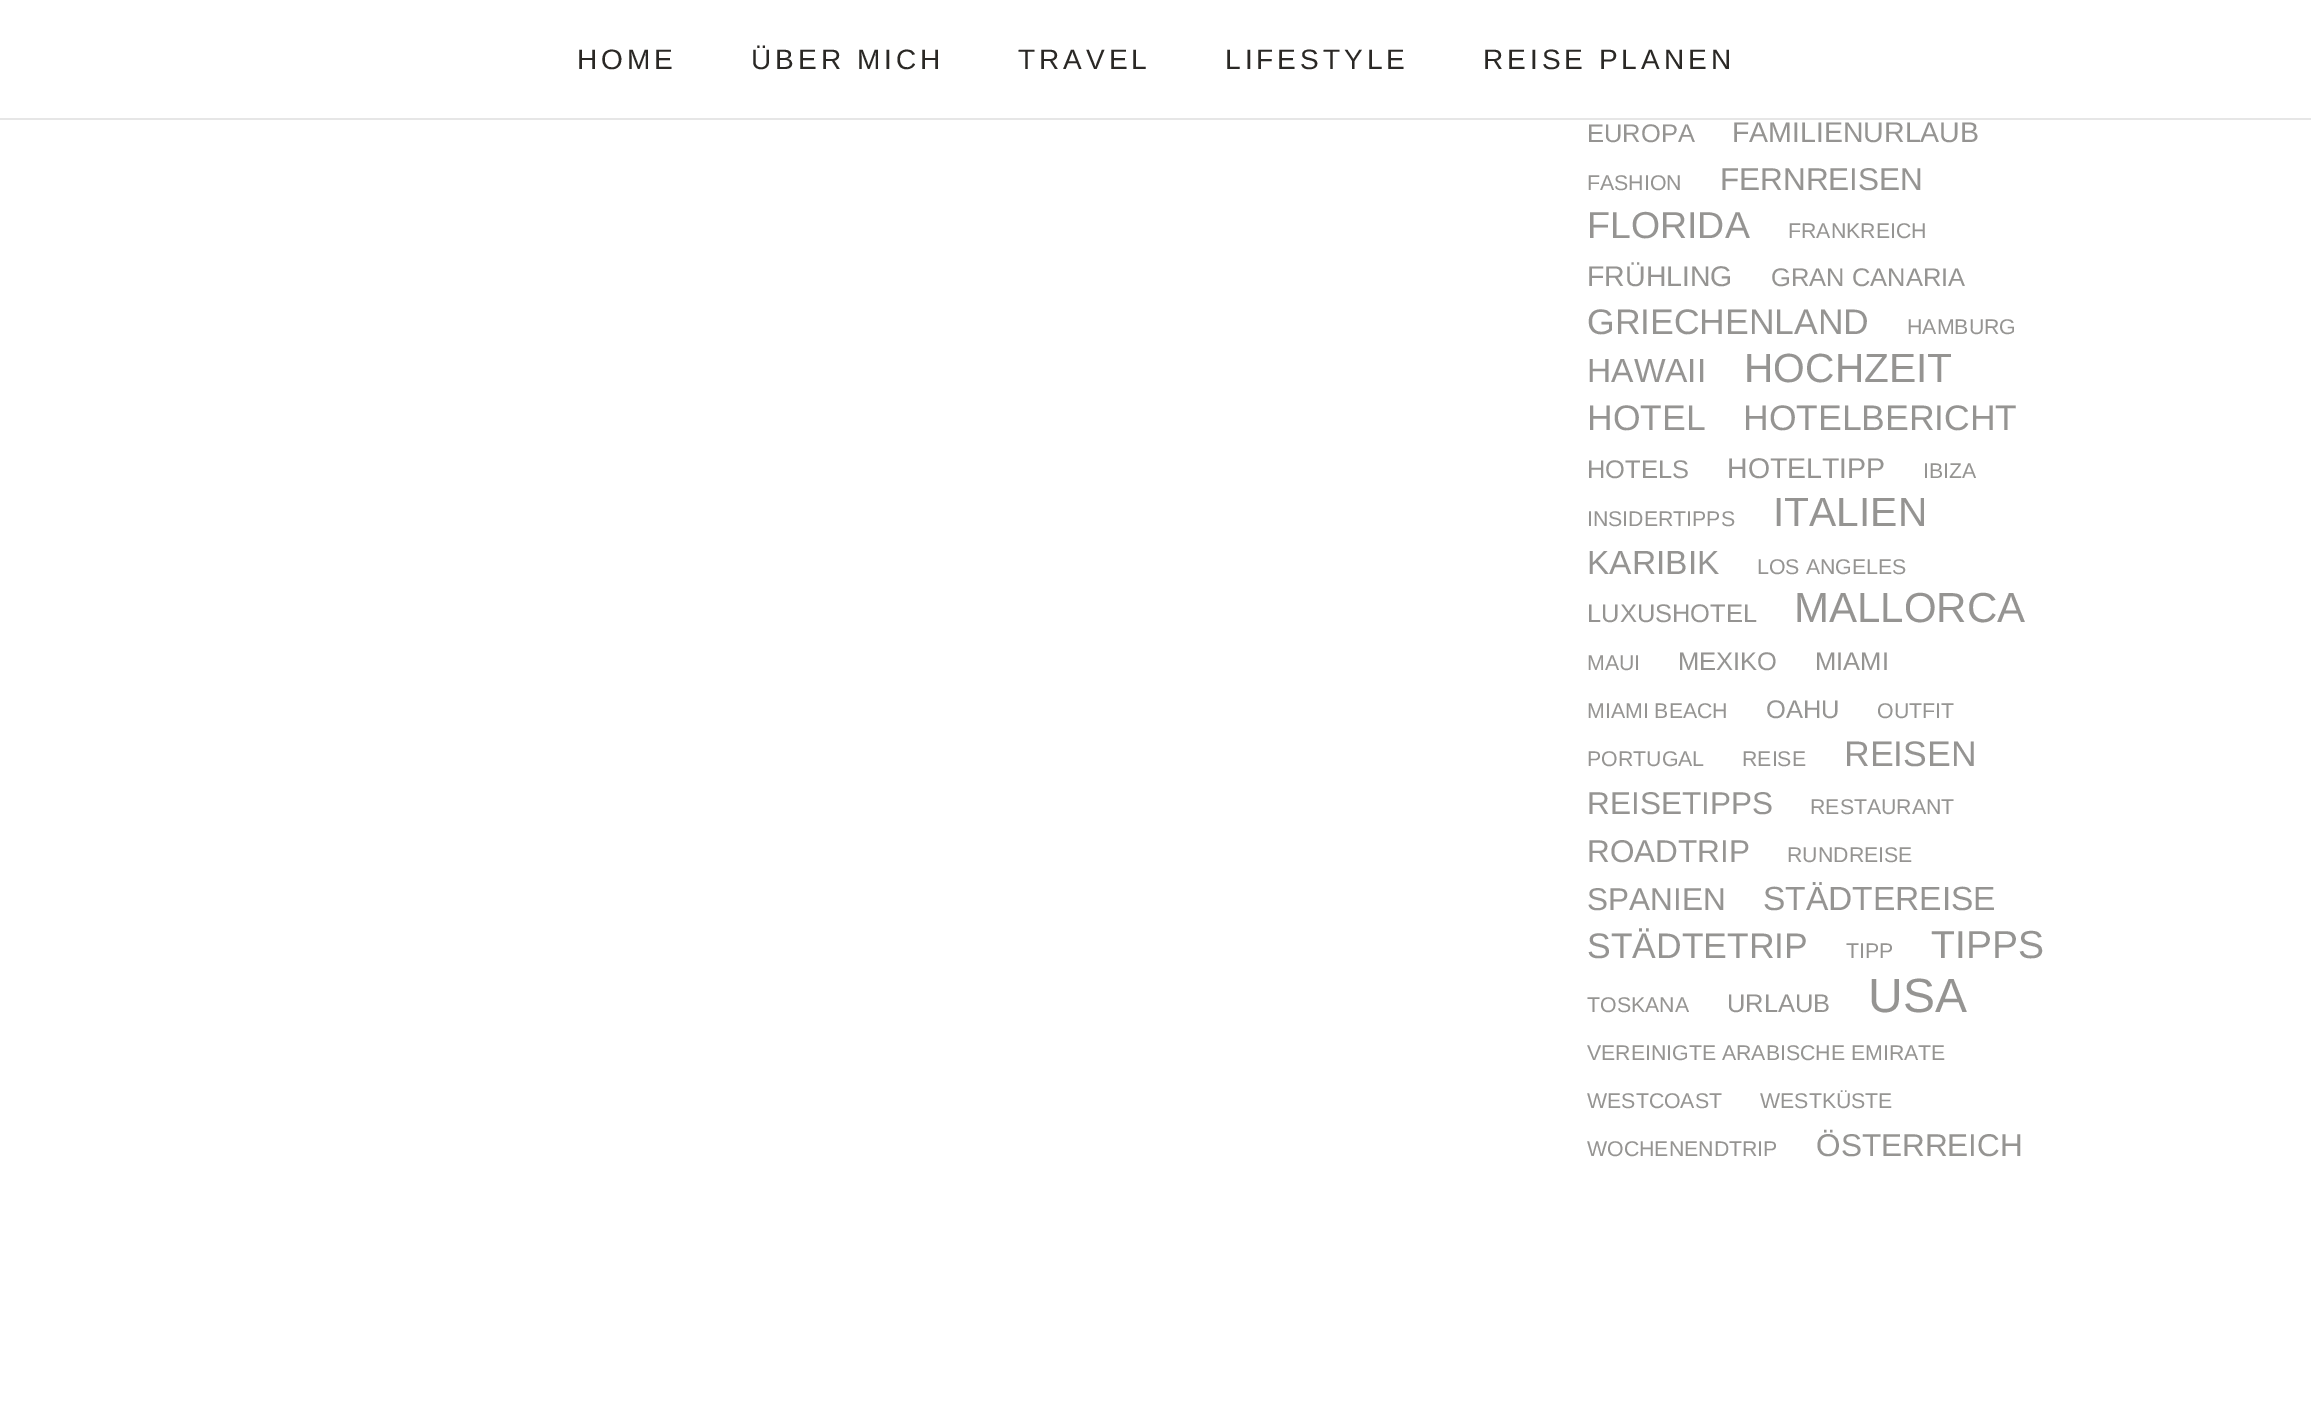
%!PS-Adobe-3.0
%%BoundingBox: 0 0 2311 1409
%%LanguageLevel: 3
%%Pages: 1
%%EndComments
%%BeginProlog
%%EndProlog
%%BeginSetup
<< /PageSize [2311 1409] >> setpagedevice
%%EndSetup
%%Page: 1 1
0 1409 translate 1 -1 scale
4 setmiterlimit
1 setgray
0 0 2311 1409 rectfill
0.902 setgray
0 118 2311 2 rectfill
/LiberationSans-Regular [28 0 0 -28 0 0] selectfont
0.165 0.157 0.145 setrgbcolor
577 69 moveto 4 0 (HOME) ashow
751 69 moveto 4 0 (ÜBER MICH) ashow
1018 69 moveto 4 0 (TRAVEL) ashow
1225 69 moveto 4 0 (LIFESTYLE) ashow
1483 69 moveto 4 0 (REISE PLANEN) ashow
/LiberationSans-Regular [25.5 0 0 -25.5 0 0] selectfont
0.584 0.58 0.573 setrgbcolor
1587 142 moveto (EUROPA) show
/LiberationSans-Regular [28.5 0 0 -28.5 0 0] selectfont
1732 142 moveto (FAMILIENURLAUB) show
/LiberationSans-Regular [21.3 0 0 -21.3 0 0] selectfont
1587 190 moveto (FASHION) show
/LiberationSans-Regular [31.5 0 0 -31.5 0 0] selectfont
1720 190 moveto (FERNREISEN) show
/LiberationSans-Regular [37.5 0 0 -37.5 0 0] selectfont
1587 238 moveto (FLORIDA) show
/LiberationSans-Regular [21.3 0 0 -21.3 0 0] selectfont
1788 238 moveto (FRANKREICH) show
/LiberationSans-Regular [28.5 0 0 -28.5 0 0] selectfont
1587 286 moveto (FRÜHLING) show
/LiberationSans-Regular [25.5 0 0 -25.5 0 0] selectfont
1771 286 moveto (GRAN CANARIA) show
/LiberationSans-Regular [35.5 0 0 -35.5 0 0] selectfont
1587 334 moveto (GRIECHENLAND) show
/LiberationSans-Regular [21.3 0 0 -21.3 0 0] selectfont
1907 334 moveto (HAMBURG) show
/LiberationSans-Regular [33.5 0 0 -33.5 0 0] selectfont
1587 382 moveto (HAWAII) show
/LiberationSans-Regular [40.75 0 0 -40.75 0 0] selectfont
1744 382 moveto (HOCHZEIT) show
/LiberationSans-Regular [35.5 0 0 -35.5 0 0] selectfont
1587 430 moveto (HOTEL) show
1743 430 moveto (HOTELBERICHT) show
/LiberationSans-Regular [25.5 0 0 -25.5 0 0] selectfont
1587 478 moveto (HOTELS) show
/LiberationSans-Regular [28.5 0 0 -28.5 0 0] selectfont
1727 478 moveto (HOTELTIPP) show
/LiberationSans-Regular [21.3 0 0 -21.3 0 0] selectfont
1923 478 moveto (IBIZA) show
1587 526 moveto (INSIDERTIPPS) show
/LiberationSans-Regular [40.75 0 0 -40.75 0 0] selectfont
1773 526 moveto (ITALIEN) show
/LiberationSans-Regular [33.5 0 0 -33.5 0 0] selectfont
1587 574 moveto (KARIBIK) show
/LiberationSans-Regular [21.3 0 0 -21.3 0 0] selectfont
1757 574 moveto (LOS ANGELES) show
/LiberationSans-Regular [25.5 0 0 -25.5 0 0] selectfont
1587 622 moveto (LUXUSHOTEL) show
/LiberationSans-Regular [42 0 0 -42 0 0] selectfont
1794 622 moveto (MALLORCA) show
/LiberationSans-Regular [21.3 0 0 -21.3 0 0] selectfont
1587 670 moveto (MAUI) show
/LiberationSans-Regular [25.5 0 0 -25.5 0 0] selectfont
1678 670 moveto (MEXIKO) show
1815 670 moveto (MIAMI) show
/LiberationSans-Regular [21.3 0 0 -21.3 0 0] selectfont
1587 718 moveto (MIAMI BEACH) show
/LiberationSans-Regular [25.5 0 0 -25.5 0 0] selectfont
1766 718 moveto (OAHU) show
/LiberationSans-Regular [21.3 0 0 -21.3 0 0] selectfont
1877 718 moveto (OUTFIT) show
1587 766 moveto (PORTUGAL) show
1742 766 moveto (REISE) show
/LiberationSans-Regular [35.5 0 0 -35.5 0 0] selectfont
1844 766 moveto (REISEN) show
/LiberationSans-Regular [31.5 0 0 -31.5 0 0] selectfont
1587 814 moveto (REISETIPPS) show
/LiberationSans-Regular [21.3 0 0 -21.3 0 0] selectfont
1810 814 moveto (RESTAURANT) show
/LiberationSans-Regular [31.5 0 0 -31.5 0 0] selectfont
1587 862 moveto (ROADTRIP) show
/LiberationSans-Regular [21.3 0 0 -21.3 0 0] selectfont
1787 862 moveto (RUNDREISE) show
/LiberationSans-Regular [31.5 0 0 -31.5 0 0] selectfont
1587 910 moveto (SPANIEN) show
/LiberationSans-Regular [33.5 0 0 -33.5 0 0] selectfont
1763 910 moveto (STÄDTEREISE) show
/LiberationSans-Regular [35.5 0 0 -35.5 0 0] selectfont
1587 958 moveto (STÄDTETRIP) show
/LiberationSans-Regular [21.3 0 0 -21.3 0 0] selectfont
1846 958 moveto (TIPP) show
/LiberationSans-Regular [39 0 0 -39 0 0] selectfont
1931 958 moveto (TIPPS) show
/LiberationSans-Regular [21.3 0 0 -21.3 0 0] selectfont
1587 1012 moveto (TOSKANA) show
/LiberationSans-Regular [25.5 0 0 -25.5 0 0] selectfont
1727 1012 moveto (URLAUB) show
/LiberationSans-Regular [48 0 0 -48 0 0] selectfont
1868 1012 moveto (USA) show
/LiberationSans-Regular [21.3 0 0 -21.3 0 0] selectfont
1587 1060 moveto (VEREINIGTE ARABISCHE EMIRATE) show
1587 1108 moveto (WESTCOAST) show
1760 1108 moveto (WESTKÜSTE) show
1587 1156 moveto (WOCHENENDTRIP) show
/LiberationSans-Regular [31.5 0 0 -31.5 0 0] selectfont
1816 1156 moveto (ÖSTERREICH) show
showpage
%%EOF
